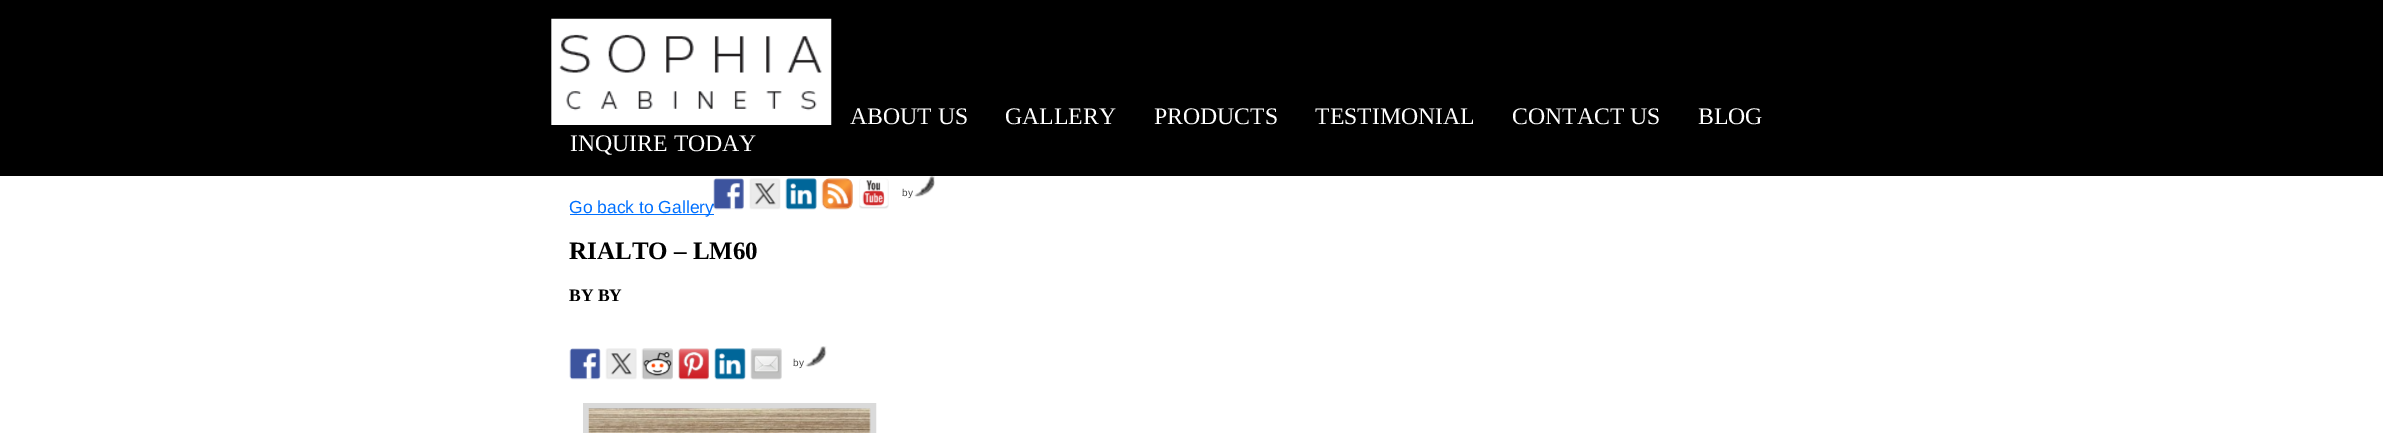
%!PS-Adobe-3.0
%%BoundingBox: 0 0 2406 433
%%LanguageLevel: 3
%%Pages: 1
%%EndComments
%%BeginProlog
/drawimage { 5 dict begin { /h /w /y /x /name } { exch def } forall
  gsave x y translate w h scale
  w h 8 [w 0 0 h 0 0] name (r) file false 3 colorimage grestore end } def
%%EndProlog
%%BeginSetup
<< /PageSize [2406 433] >> setpagedevice
%%EndSetup
%%Page: 1 1
0 433 translate 1 -1 scale
4 setmiterlimit
1 setgray
0 0 2406 433 rectfill
0 setgray
0 0 2383 176 rectfill
(images/1.raw) 551 18 281 107 drawimage
(images/3.raw) 749 178 32 32 drawimage
(images/4.raw) 785 178 32 32 drawimage
(images/5.raw) 821 178 32 32 drawimage
(images/6.raw) 859 178 30 31 drawimage
(images/7.raw) 914 176 21 21 drawimage
(images/8.raw) 569 348 32 32 drawimage
(images/9.raw) 605 348 32 32 drawimage
(images/10.raw) 641 348 32 32 drawimage
(images/11.raw) 678 348 31 32 drawimage
(images/12.raw) 714 348 32 32 drawimage
(images/13.raw) 750 348 32 32 drawimage
(images/14.raw) 805 346 22 21 drawimage
0.855 setgray
6 setlinewidth
586 406 287 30 rectstroke
(images/15.raw) 588 408 283 25 drawimage
0 0.439 1 setrgbcolor
570 214 144 1 rectfill
/LiberationSerif-Regular [23.75 0 0 -23.75 0 0] selectfont
1 setgray
850 124 moveto (ABOUT US) show
1005 124 moveto (GALLERY) show
1154 124 moveto (PRODUCTS) show
1315 124 moveto (TESTIMONIAL) show
1512 124 moveto (CONTACT US) show
1698 124 moveto (BLOG) show
570 151 moveto (INQUIRE TODAY) show
/LiberationSerif-Bold [25 0 0 -25 0 0] selectfont
0 setgray
569 259 moveto (RIALTO – LM60) show
/LiberationSerif-Bold [17.5 0 0 -17.5 0 0] selectfont
569 301 moveto (BY BY) show
/LiberationSans-Regular [10 0 0 -10 0 0] selectfont
0.267 setgray
902 196 moveto (by) show
793 366 moveto (by) show
/LiberationSans-Regular [17.5 0 0 -17.5 0 0] selectfont
0 0.439 1 setrgbcolor
569 213 moveto (Go back to Gallery) show
(images/2.raw) 713 178 31 32 drawimage
showpage
%%EOF
